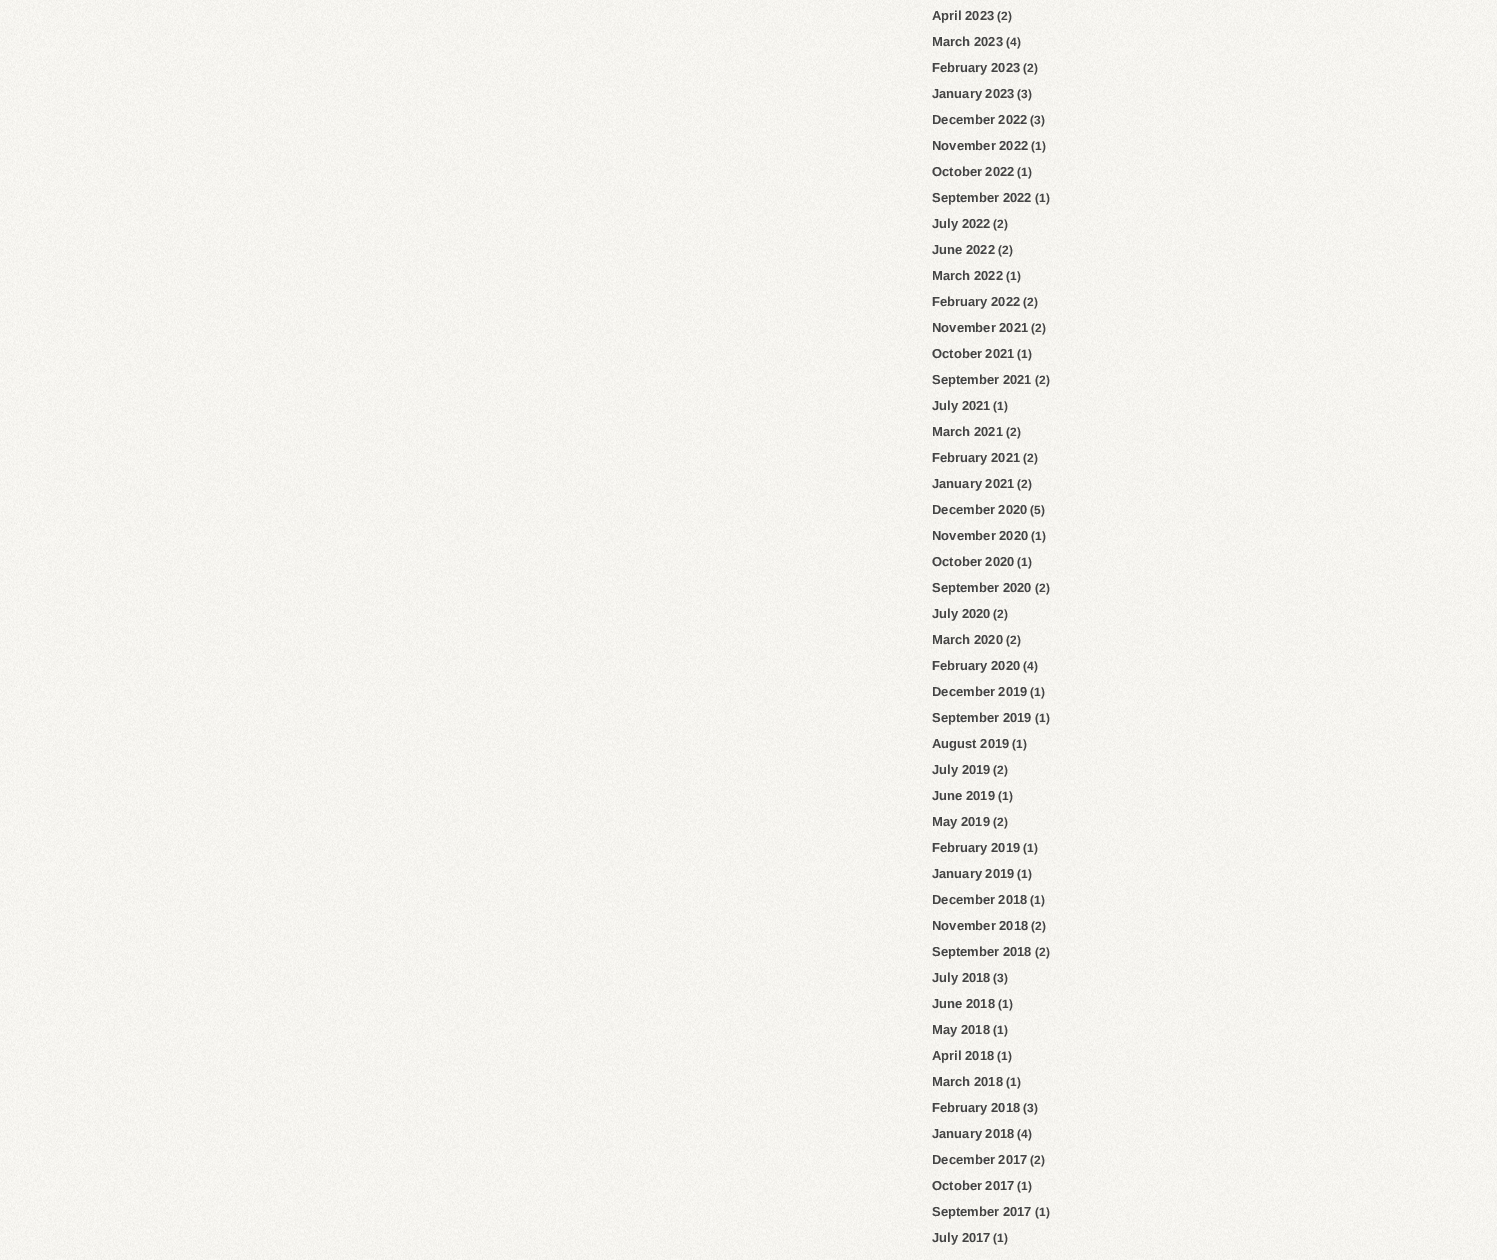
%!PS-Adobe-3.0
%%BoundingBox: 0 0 1497 1260
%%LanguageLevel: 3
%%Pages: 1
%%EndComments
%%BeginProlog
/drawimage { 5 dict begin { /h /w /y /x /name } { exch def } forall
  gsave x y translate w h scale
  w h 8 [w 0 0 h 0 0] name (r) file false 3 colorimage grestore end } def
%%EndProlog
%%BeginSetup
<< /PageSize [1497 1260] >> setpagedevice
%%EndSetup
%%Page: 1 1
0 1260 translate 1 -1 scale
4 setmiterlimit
1 setgray
0 0 1497 1260 rectfill
(images/1.raw) 0 0 1497 1260 drawimage
/LiberationSans-Bold [13 0 0 -13 0 0] selectfont
0.267 setgray
932 20 moveto (April 2023) show
/LiberationSans-Bold [12 0 0 -12 0 0] selectfont
997 20 moveto (\(2\)) show
/LiberationSans-Bold [13 0 0 -13 0 0] selectfont
932 46 moveto (March 2023) show
/LiberationSans-Bold [12 0 0 -12 0 0] selectfont
1006 46 moveto (\(4\)) show
/LiberationSans-Bold [13 0 0 -13 0 0] selectfont
932 72 moveto (February 2023) show
/LiberationSans-Bold [12 0 0 -12 0 0] selectfont
1023 72 moveto (\(2\)) show
/LiberationSans-Bold [13 0 0 -13 0 0] selectfont
932 98 moveto (January 2023) show
/LiberationSans-Bold [12 0 0 -12 0 0] selectfont
1017 98 moveto (\(3\)) show
/LiberationSans-Bold [13 0 0 -13 0 0] selectfont
932 124 moveto (December 2022) show
/LiberationSans-Bold [12 0 0 -12 0 0] selectfont
1030 124 moveto (\(3\)) show
/LiberationSans-Bold [13 0 0 -13 0 0] selectfont
932 150 moveto (November 2022) show
/LiberationSans-Bold [12 0 0 -12 0 0] selectfont
1031 150 moveto (\(1\)) show
/LiberationSans-Bold [13 0 0 -13 0 0] selectfont
932 176 moveto (October 2022) show
/LiberationSans-Bold [12 0 0 -12 0 0] selectfont
1017 176 moveto (\(1\)) show
/LiberationSans-Bold [13 0 0 -13 0 0] selectfont
932 202 moveto (September 2022) show
/LiberationSans-Bold [12 0 0 -12 0 0] selectfont
1035 202 moveto (\(1\)) show
/LiberationSans-Bold [13 0 0 -13 0 0] selectfont
932 228 moveto (July 2022) show
/LiberationSans-Bold [12 0 0 -12 0 0] selectfont
993 228 moveto (\(2\)) show
/LiberationSans-Bold [13 0 0 -13 0 0] selectfont
932 254 moveto (June 2022) show
/LiberationSans-Bold [12 0 0 -12 0 0] selectfont
998 254 moveto (\(2\)) show
/LiberationSans-Bold [13 0 0 -13 0 0] selectfont
932 280 moveto (March 2022) show
/LiberationSans-Bold [12 0 0 -12 0 0] selectfont
1006 280 moveto (\(1\)) show
/LiberationSans-Bold [13 0 0 -13 0 0] selectfont
932 306 moveto (February 2022) show
/LiberationSans-Bold [12 0 0 -12 0 0] selectfont
1023 306 moveto (\(2\)) show
/LiberationSans-Bold [13 0 0 -13 0 0] selectfont
932 332 moveto (November 2021) show
/LiberationSans-Bold [12 0 0 -12 0 0] selectfont
1031 332 moveto (\(2\)) show
/LiberationSans-Bold [13 0 0 -13 0 0] selectfont
932 358 moveto (October 2021) show
/LiberationSans-Bold [12 0 0 -12 0 0] selectfont
1017 358 moveto (\(1\)) show
/LiberationSans-Bold [13 0 0 -13 0 0] selectfont
932 384 moveto (September 2021) show
/LiberationSans-Bold [12 0 0 -12 0 0] selectfont
1035 384 moveto (\(2\)) show
/LiberationSans-Bold [13 0 0 -13 0 0] selectfont
932 410 moveto (July 2021) show
/LiberationSans-Bold [12 0 0 -12 0 0] selectfont
993 410 moveto (\(1\)) show
/LiberationSans-Bold [13 0 0 -13 0 0] selectfont
932 436 moveto (March 2021) show
/LiberationSans-Bold [12 0 0 -12 0 0] selectfont
1006 436 moveto (\(2\)) show
/LiberationSans-Bold [13 0 0 -13 0 0] selectfont
932 462 moveto (February 2021) show
/LiberationSans-Bold [12 0 0 -12 0 0] selectfont
1023 462 moveto (\(2\)) show
/LiberationSans-Bold [13 0 0 -13 0 0] selectfont
932 488 moveto (January 2021) show
/LiberationSans-Bold [12 0 0 -12 0 0] selectfont
1017 488 moveto (\(2\)) show
/LiberationSans-Bold [13 0 0 -13 0 0] selectfont
932 514 moveto (December 2020) show
/LiberationSans-Bold [12 0 0 -12 0 0] selectfont
1030 514 moveto (\(5\)) show
/LiberationSans-Bold [13 0 0 -13 0 0] selectfont
932 540 moveto (November 2020) show
/LiberationSans-Bold [12 0 0 -12 0 0] selectfont
1031 540 moveto (\(1\)) show
/LiberationSans-Bold [13 0 0 -13 0 0] selectfont
932 566 moveto (October 2020) show
/LiberationSans-Bold [12 0 0 -12 0 0] selectfont
1017 566 moveto (\(1\)) show
/LiberationSans-Bold [13 0 0 -13 0 0] selectfont
932 592 moveto (September 2020) show
/LiberationSans-Bold [12 0 0 -12 0 0] selectfont
1035 592 moveto (\(2\)) show
/LiberationSans-Bold [13 0 0 -13 0 0] selectfont
932 618 moveto (July 2020) show
/LiberationSans-Bold [12 0 0 -12 0 0] selectfont
993 618 moveto (\(2\)) show
/LiberationSans-Bold [13 0 0 -13 0 0] selectfont
932 644 moveto (March 2020) show
/LiberationSans-Bold [12 0 0 -12 0 0] selectfont
1006 644 moveto (\(2\)) show
/LiberationSans-Bold [13 0 0 -13 0 0] selectfont
932 670 moveto (February 2020) show
/LiberationSans-Bold [12 0 0 -12 0 0] selectfont
1023 670 moveto (\(4\)) show
/LiberationSans-Bold [13 0 0 -13 0 0] selectfont
932 696 moveto (December 2019) show
/LiberationSans-Bold [12 0 0 -12 0 0] selectfont
1030 696 moveto (\(1\)) show
/LiberationSans-Bold [13 0 0 -13 0 0] selectfont
932 722 moveto (September 2019) show
/LiberationSans-Bold [12 0 0 -12 0 0] selectfont
1035 722 moveto (\(1\)) show
/LiberationSans-Bold [13 0 0 -13 0 0] selectfont
932 748 moveto (August 2019) show
/LiberationSans-Bold [12 0 0 -12 0 0] selectfont
1012 748 moveto (\(1\)) show
/LiberationSans-Bold [13 0 0 -13 0 0] selectfont
932 774 moveto (July 2019) show
/LiberationSans-Bold [12 0 0 -12 0 0] selectfont
993 774 moveto (\(2\)) show
/LiberationSans-Bold [13 0 0 -13 0 0] selectfont
932 800 moveto (June 2019) show
/LiberationSans-Bold [12 0 0 -12 0 0] selectfont
998 800 moveto (\(1\)) show
/LiberationSans-Bold [13 0 0 -13 0 0] selectfont
932 826 moveto (May 2019) show
/LiberationSans-Bold [12 0 0 -12 0 0] selectfont
993 826 moveto (\(2\)) show
/LiberationSans-Bold [13 0 0 -13 0 0] selectfont
932 852 moveto (February 2019) show
/LiberationSans-Bold [12 0 0 -12 0 0] selectfont
1023 852 moveto (\(1\)) show
/LiberationSans-Bold [13 0 0 -13 0 0] selectfont
932 878 moveto (January 2019) show
/LiberationSans-Bold [12 0 0 -12 0 0] selectfont
1017 878 moveto (\(1\)) show
/LiberationSans-Bold [13 0 0 -13 0 0] selectfont
932 904 moveto (December 2018) show
/LiberationSans-Bold [12 0 0 -12 0 0] selectfont
1030 904 moveto (\(1\)) show
/LiberationSans-Bold [13 0 0 -13 0 0] selectfont
932 930 moveto (November 2018) show
/LiberationSans-Bold [12 0 0 -12 0 0] selectfont
1031 930 moveto (\(2\)) show
/LiberationSans-Bold [13 0 0 -13 0 0] selectfont
932 956 moveto (September 2018) show
/LiberationSans-Bold [12 0 0 -12 0 0] selectfont
1035 956 moveto (\(2\)) show
/LiberationSans-Bold [13 0 0 -13 0 0] selectfont
932 982 moveto (July 2018) show
/LiberationSans-Bold [12 0 0 -12 0 0] selectfont
993 982 moveto (\(3\)) show
/LiberationSans-Bold [13 0 0 -13 0 0] selectfont
932 1008 moveto (June 2018) show
/LiberationSans-Bold [12 0 0 -12 0 0] selectfont
998 1008 moveto (\(1\)) show
/LiberationSans-Bold [13 0 0 -13 0 0] selectfont
932 1034 moveto (May 2018) show
/LiberationSans-Bold [12 0 0 -12 0 0] selectfont
993 1034 moveto (\(1\)) show
/LiberationSans-Bold [13 0 0 -13 0 0] selectfont
932 1060 moveto (April 2018) show
/LiberationSans-Bold [12 0 0 -12 0 0] selectfont
997 1060 moveto (\(1\)) show
/LiberationSans-Bold [13 0 0 -13 0 0] selectfont
932 1086 moveto (March 2018) show
/LiberationSans-Bold [12 0 0 -12 0 0] selectfont
1006 1086 moveto (\(1\)) show
/LiberationSans-Bold [13 0 0 -13 0 0] selectfont
932 1112 moveto (February 2018) show
/LiberationSans-Bold [12 0 0 -12 0 0] selectfont
1023 1112 moveto (\(3\)) show
/LiberationSans-Bold [13 0 0 -13 0 0] selectfont
932 1138 moveto (January 2018) show
/LiberationSans-Bold [12 0 0 -12 0 0] selectfont
1017 1138 moveto (\(4\)) show
/LiberationSans-Bold [13 0 0 -13 0 0] selectfont
932 1164 moveto (December 2017) show
/LiberationSans-Bold [12 0 0 -12 0 0] selectfont
1030 1164 moveto (\(2\)) show
/LiberationSans-Bold [13 0 0 -13 0 0] selectfont
932 1190 moveto (October 2017) show
/LiberationSans-Bold [12 0 0 -12 0 0] selectfont
1017 1190 moveto (\(1\)) show
/LiberationSans-Bold [13 0 0 -13 0 0] selectfont
932 1216 moveto (September 2017) show
/LiberationSans-Bold [12 0 0 -12 0 0] selectfont
1035 1216 moveto (\(1\)) show
/LiberationSans-Bold [13 0 0 -13 0 0] selectfont
932 1242 moveto (July 2017) show
/LiberationSans-Bold [12 0 0 -12 0 0] selectfont
993 1242 moveto (\(1\)) show
showpage
%%EOF
